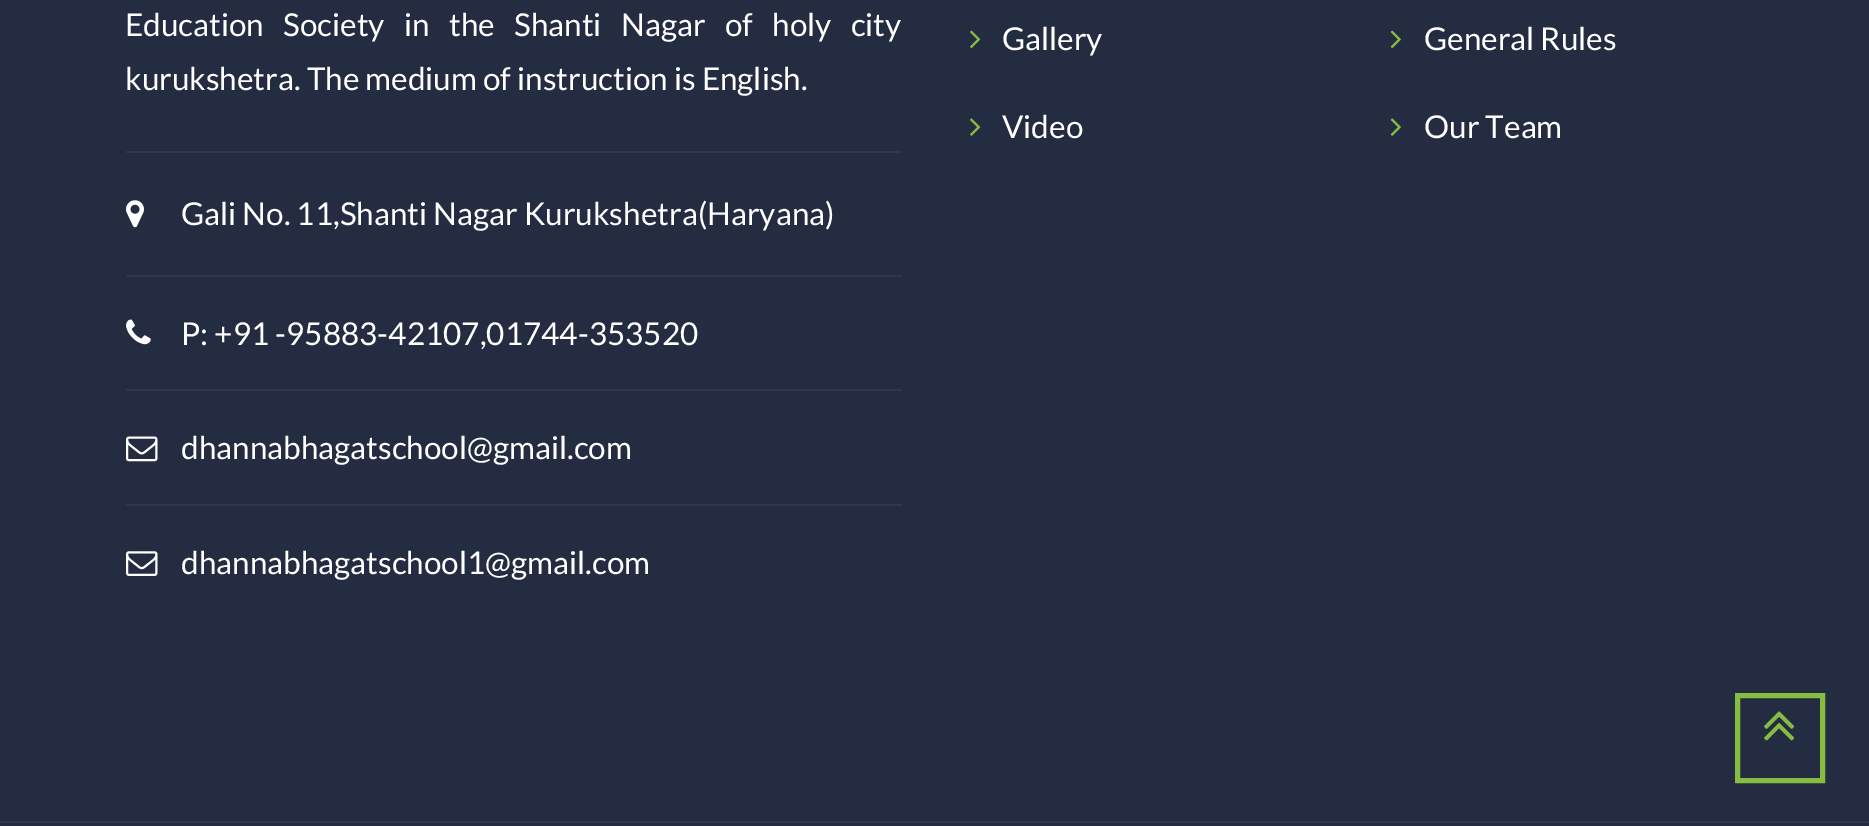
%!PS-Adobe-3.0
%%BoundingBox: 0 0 1869 826
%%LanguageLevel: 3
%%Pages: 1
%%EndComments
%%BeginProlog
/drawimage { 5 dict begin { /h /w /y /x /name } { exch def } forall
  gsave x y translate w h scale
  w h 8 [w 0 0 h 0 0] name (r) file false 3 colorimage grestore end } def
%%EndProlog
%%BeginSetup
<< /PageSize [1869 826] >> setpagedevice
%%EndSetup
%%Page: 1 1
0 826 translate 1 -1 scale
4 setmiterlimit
0.141 0.173 0.259 setrgbcolor
0 0 1869 826 rectfill
0.184 0.216 0.298 setrgbcolor
126 151 776 2 rectfill
(images/1.raw) 126 200 18 28 drawimage
126 275 776 2 rectfill
(images/2.raw) 126 319 25 26 drawimage
126 389 776 2 rectfill
(images/3.raw) 126 436 32 26 drawimage
126 504 776 2 rectfill
(images/4.raw) 126 551 32 25 drawimage
(images/5.raw) 970 30 11 19 drawimage
(images/6.raw) 970 118 11 18 drawimage
(images/7.raw) 1390 30 11 19 drawimage
(images/8.raw) 1390 118 11 18 drawimage
0 821 1869 2 rectfill
0.525 0.737 0.259 setrgbcolor
5 setlinewidth
1737.5 695.5 85 85 rectstroke
(images/9.raw) 1764 711 31 30 drawimage
/Lato-Regular [31.5 0 0 -31.5 0 0] selectfont
1 setgray
125 36 moveto 13.25 0 32 (Education Society in the Shanti Nagar of holy city) widthshow
125 90 moveto (kurukshetra. The medium of instruction is English.) show
181 225 moveto (Gali No. 11,Shanti Nagar Kurukshetra\(Haryana\)) show
181 345 moveto (P: +91 -95883-42107,01744-353520) show
181 459 moveto (dhannabhagatschool@gmail.com) show
181 574 moveto (dhannabhagatschool1@gmail.com) show
1002 50 moveto (Gallery) show
1002 138 moveto (Video) show
1424 50 moveto (General Rules) show
1424 138 moveto (Our Team) show
showpage
%%EOF
